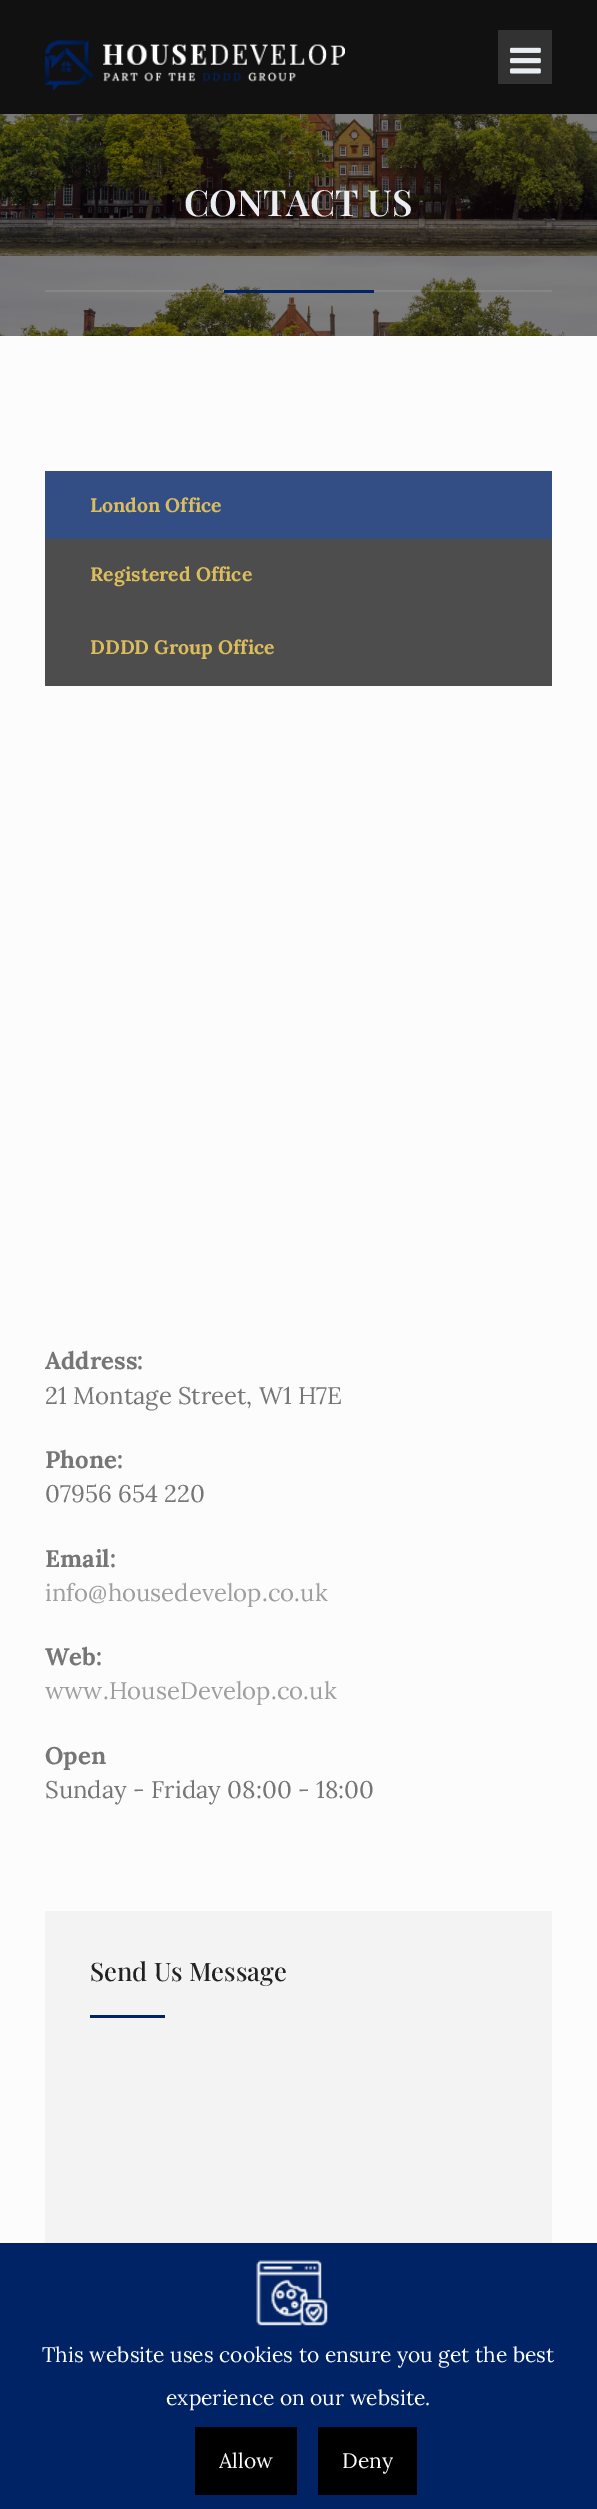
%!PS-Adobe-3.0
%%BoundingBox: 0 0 597 2509
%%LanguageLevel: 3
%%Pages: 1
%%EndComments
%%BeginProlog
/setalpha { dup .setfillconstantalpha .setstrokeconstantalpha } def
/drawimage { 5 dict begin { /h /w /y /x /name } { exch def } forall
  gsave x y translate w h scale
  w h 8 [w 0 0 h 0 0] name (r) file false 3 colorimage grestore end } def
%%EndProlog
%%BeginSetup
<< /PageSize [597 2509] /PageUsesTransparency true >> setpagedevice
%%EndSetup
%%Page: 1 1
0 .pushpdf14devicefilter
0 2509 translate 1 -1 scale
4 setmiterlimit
0.067 setgray
0 0 597 2509 rectfill
(images/1.raw) 45 40 300 50 drawimage
0.196 setgray
498 30 54 54 rectfill
(images/2.raw) 510 47 31 27 drawimage
(images/3.raw) 0 114 597 222 drawimage
0.1 setalpha
0.988 setgray
45 290 507 2 rectfill
1 setalpha
0 0.137 0.396 setrgbcolor
224 290 150 3 rectfill
0.988 setgray
0 336 597 1907 rectfill
0.196 0.306 0.518 setrgbcolor
45 471 507 68 rectfill
0.302 setgray
45 539 507 147 rectfill
0.953 setgray
45 1911 507 332 rectfill
0 0.137 0.396 setrgbcolor
90 2015 75 3 rectfill
0 2243 597 266 rectfill
(images/4.raw) 256 2260 72 66 drawimage
0 setgray
195 2427 102 68 rectfill
318 2427 99 68 rectfill
/PlayfairDisplay-SemiBold [36 0 0 -36 0 0] selectfont
0.918 0.929 0.945 setrgbcolor
184 216 moveto (CONTACT US) show
/Lora-Bold [19.5 0 0 -19.5 0 0] selectfont
0.859 0.741 0.369 setrgbcolor
90 512 moveto (London Office) show
90 581 moveto (Registered Office) show
90 654 moveto (DDDD Group Office) show
/Lora-Bold [24 0 0 -24 0 0] selectfont
0.463 setgray
45 1369 moveto (Address:) show
/Lora-Regular [24 0 0 -24 0 0] selectfont
45 1404 moveto (21 Montage Street, W1 H7E) show
/Lora-Bold [24 0 0 -24 0 0] selectfont
45 1468 moveto (Phone:) show
/Lora-Regular [24 0 0 -24 0 0] selectfont
45 1502 moveto (07956 654 220) show
/Lora-Bold [24 0 0 -24 0 0] selectfont
45 1567 moveto (Email:) show
/Lora-Regular [24 0 0 -24 0 0] selectfont
0.62 setgray
45 1601 moveto (info@housedevelop.co.uk) show
/Lora-Bold [24 0 0 -24 0 0] selectfont
0.463 setgray
45 1665 moveto (Web:) show
/Lora-Regular [24 0 0 -24 0 0] selectfont
0.62 setgray
45 1699 moveto (www.HouseDevelop.co.uk) show
/Lora-Bold [24 0 0 -24 0 0] selectfont
0.463 setgray
45 1764 moveto (Open) show
/Lora-Regular [24 0 0 -24 0 0] selectfont
45 1798 moveto (Sunday - Friday 08:00 - 18:00) show
/PlayfairDisplay-Medium [25.5 0 0 -25.5 0 0] selectfont
0.133 setgray
90 1981 moveto (Send Us Message) show
/Lora-Regular [21 0 0 -21 0 0] selectfont
0.988 setgray
42 2362 moveto (This website uses cookies to ensure you get the best) show
166 2405 moveto (experience on our website.) show
219 2468 moveto (Allow) show
342 2468 moveto (Deny) show
.poppdf14devicefilter showpage
%%EOF
